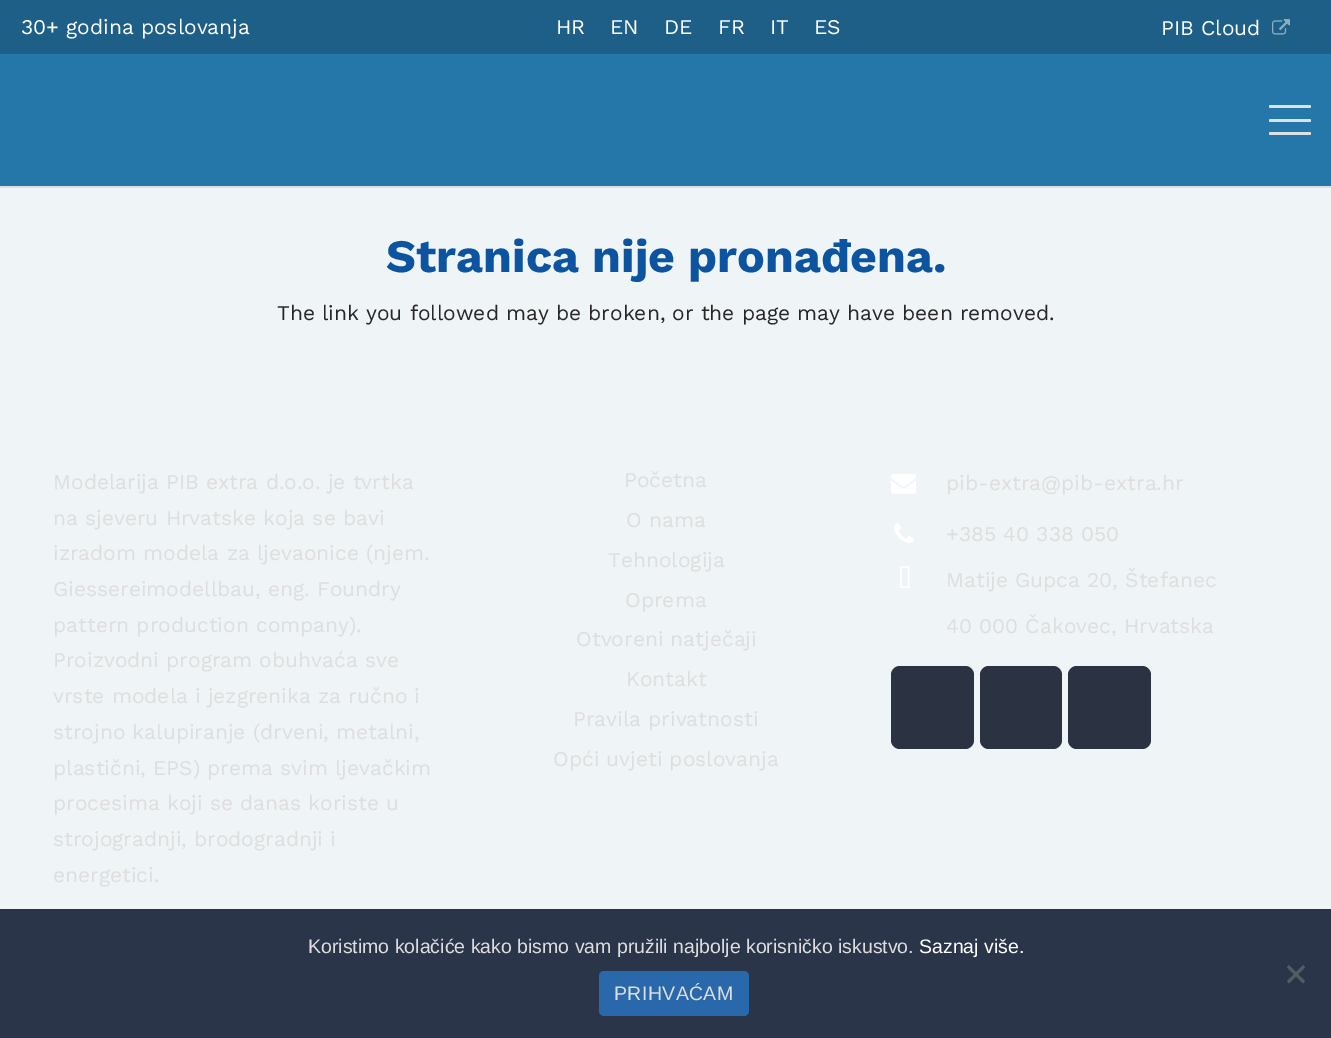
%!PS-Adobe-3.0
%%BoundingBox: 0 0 1331 1038
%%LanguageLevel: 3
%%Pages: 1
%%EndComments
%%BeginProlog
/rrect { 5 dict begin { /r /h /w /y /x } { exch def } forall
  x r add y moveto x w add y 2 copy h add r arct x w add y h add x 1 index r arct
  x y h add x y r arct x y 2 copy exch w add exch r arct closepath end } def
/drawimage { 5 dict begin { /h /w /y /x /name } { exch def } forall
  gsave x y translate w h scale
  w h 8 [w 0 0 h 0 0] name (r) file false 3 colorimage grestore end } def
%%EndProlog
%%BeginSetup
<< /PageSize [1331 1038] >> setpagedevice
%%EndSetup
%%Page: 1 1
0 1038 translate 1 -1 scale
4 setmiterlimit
0.937 0.957 0.965 setrgbcolor
0 0 1331 1038 rectfill
0.114 0.373 0.525 setrgbcolor
0 0 1331 54 rectfill
(images/1.raw) 1272 19 18 16 drawimage
0.863 0.878 0.886 setrgbcolor
0 186 1331 2 rectfill
0.141 0.467 0.659 setrgbcolor
0 54 1331 132 rectfill
0.871 0.878 0.886 setrgbcolor
1269 119 42 3 1.5 rrect fill
1269 105 42 3 1.5 rrect fill
1269 132 42 3 1.5 rrect fill
(images/2.raw) 891 474 25 20 drawimage
(images/3.raw) 894 523 20 20 drawimage
(images/4.raw) 900 566 10 22 drawimage
0.169 0.196 0.259 setrgbcolor
891 666 83 83 9 rrect fill
980 666 82 83 9 rrect fill
1068 666 83 83 9 rrect fill
0.165 0.208 0.286 setrgbcolor
0 909 1331 129 rectfill
0.333 0.357 0.396 setrgbcolor
newpath 1303 965 moveto 1305 967.5 lineto 1289 983.5 lineto 1287 981 lineto closepath fill
newpath 1287 967.5 moveto 1289 965 lineto 1305 981 lineto 1303 983.5 lineto closepath fill
0.157 0.408 0.671 setrgbcolor
599 971 150 45 5 rrect fill
/WorkSans-Regular [21 0 0 -21 0 0] selectfont
1 setgray
21 34 moveto (30+ godina poslovanja) show
556 34 moveto (HR) show
610 34 moveto (EN) show
664 34 moveto (DE) show
718 34 moveto (FR) show
770 34 moveto (IT) show
814 34 moveto (ES) show
1161 35 moveto (PIB Cloud) show
/WorkSans-Bold [46.5 0 0 -46.5 0 0] selectfont
0.047 0.329 0.627 setrgbcolor
386 272 moveto (Stranica nije pronađena.) show
/WorkSans-Regular [21 0 0 -21 0 0] selectfont
0.149 setgray
277 320 moveto (The link you followed may be broken, or the page may have been removed.) show
0.871 setgray
53 489 moveto (Modelarija PIB extra d.o.o. je tvrtka) show
53 525 moveto (na sjeveru Hrvatske koja se bavi) show
53 560 moveto (izradom modela za ljevaonice \(njem.) show
53 596 moveto (Giessereimodellbau, eng. Foundry) show
53 632 moveto (pattern production company\).) show
53 667 moveto (Proizvodni program obuhvaća sve) show
53 703 moveto (vrste modela i jezgrenika za ručno i) show
53 739 moveto (strojno kalupiranje \(drveni, metalni,) show
53 775 moveto (plastični, EPS\) prema svim ljevačkim) show
53 810 moveto (procesima koji se danas koriste u) show
53 846 moveto (strojogradnji, brodogradnji i) show
53 882 moveto (energetici.) show
624 487 moveto (Početna) show
626 527 moveto (O nama) show
608 567 moveto (Tehnologija) show
625 607 moveto (Oprema) show
576 646 moveto (Otvoreni natječaji) show
626 686 moveto (Kontakt) show
573 726 moveto (Pravila privatnosti) show
553 766 moveto (Opći uvjeti poslovanja) show
946 490 moveto (pib-extra@pib-extra.hr) show
946 541 moveto (+385 40 338 050) show
946 587 moveto (Matije Gupca 20, Štefanec) show
946 633 moveto (40 000 Čakovec, Hrvatska) show
/LiberationSans-Regular [19.5 0 0 -19.5 0 0] selectfont
308 953 moveto (Koristimo kolačiće kako bismo vam pružili najbolje korisničko iskustvo.) show
1 setgray
919 953 moveto (Saznaj više.) show
0.871 setgray
614 1000 moveto 0.4 0 (PRIHVAĆAM) ashow
showpage
%%EOF
